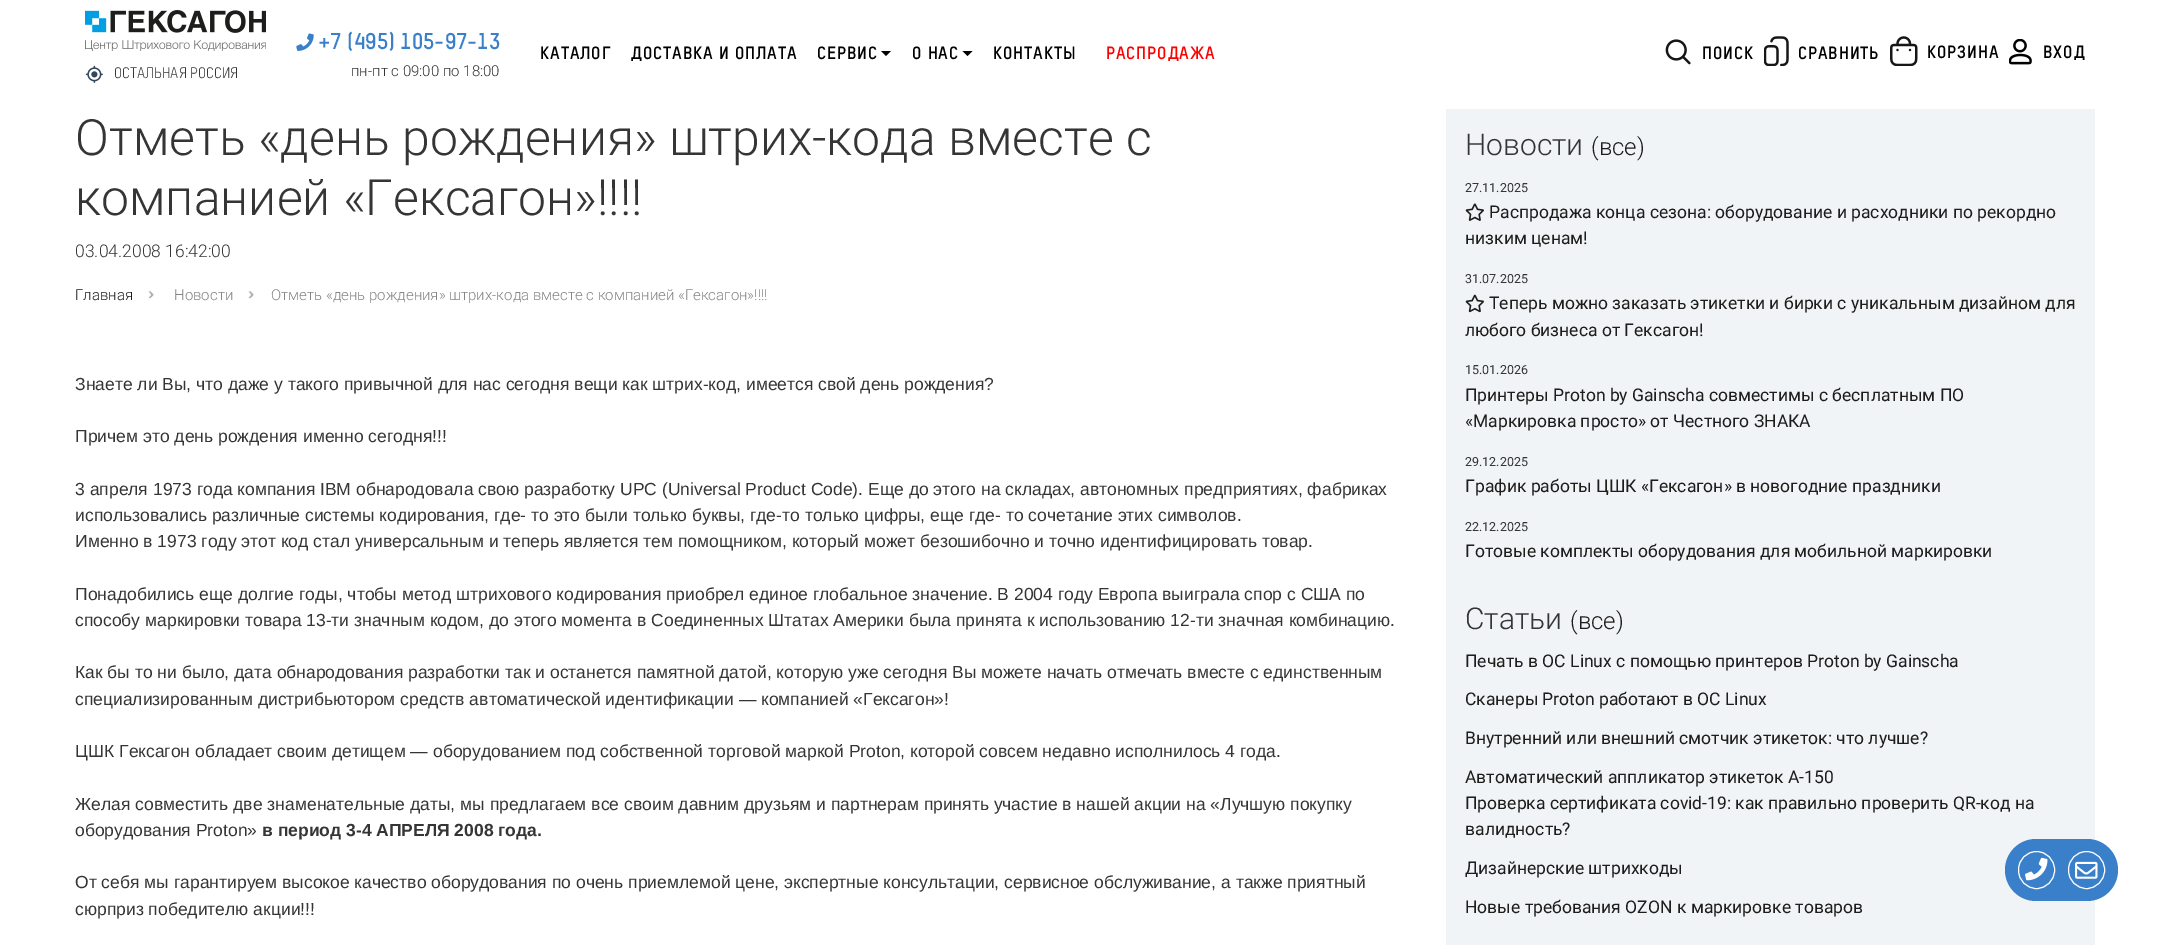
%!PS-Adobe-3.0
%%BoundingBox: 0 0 2169 945
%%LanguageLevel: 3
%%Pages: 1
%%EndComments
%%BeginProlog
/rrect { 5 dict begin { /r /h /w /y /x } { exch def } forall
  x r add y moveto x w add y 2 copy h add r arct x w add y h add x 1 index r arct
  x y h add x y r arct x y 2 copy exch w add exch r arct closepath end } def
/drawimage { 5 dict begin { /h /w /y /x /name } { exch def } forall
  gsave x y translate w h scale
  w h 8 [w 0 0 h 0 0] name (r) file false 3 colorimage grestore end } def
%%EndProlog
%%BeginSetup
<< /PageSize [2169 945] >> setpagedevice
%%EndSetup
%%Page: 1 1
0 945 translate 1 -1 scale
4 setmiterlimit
1 setgray
0 0 2169 945 rectfill
(images/1.raw) 296 33 18 18 drawimage
0 setgray
newpath 881 51 moveto 891 51 lineto 886 56 lineto closepath fill
newpath 962.5 51 moveto 972.5 51 lineto 967.5 56 lineto closepath fill
(images/2.raw) 1665 39 26 26 drawimage
(images/3.raw) 1764 36 25 30 drawimage
(images/4.raw) 1890 36 28 30 drawimage
(images/5.raw) 2009 39 23 26 drawimage
(images/6.raw) 85 10 181 41 drawimage
(images/7.raw) 85 65 18 18 drawimage
(images/8.raw) 148 291 6 8 drawimage
(images/8.raw) 248 291 6 8 drawimage
0.945 0.957 0.965 setrgbcolor
1446 109 649 836 rectfill
(images/9.raw) 1465 203 19 18 drawimage
(images/10.raw) 1465 294 19 19 drawimage
0.227 0.498 0.788 setrgbcolor
2005 839 113 62 31 rrect fill
1 setgray
2018.5 851.5 36 37 18 rrect stroke
(images/11.raw) 2025 857 23 24 drawimage
2068.5 851.5 36 37 18 rrect stroke
(images/12.raw) 2075 861 23 18 drawimage
/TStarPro-Bold [22.5 0 0 -22.5 0 0] selectfont
0.227 0.498 0.788 setrgbcolor
318 49 moveto (+7 \(495\) 105-97-13) show
/Roboto-Light [15 0 0 -15 0 0] selectfont
0.208 setgray
351 76 moveto (пн-пт с 09:00 по 18:00) show
/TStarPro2-Bold [17.5 0 0 -17.5 0 0] selectfont
0 setgray
540 59 moveto 0.9 0 (КАТАЛОГ) ashow
631 59 moveto 0.9 0 (ДОСТАВКА И ОПЛАТА) ashow
817 59 moveto 0.9 0 (СЕРВИС) ashow
912 59 moveto 0.9 0 (О НАС) ashow
993 59 moveto 0.9 0 (КОНТАКТЫ) ashow
1 0 0 setrgbcolor
1106 59 moveto 0.9 0 (РАСПРОДАЖА) ashow
0 setgray
1702 59 moveto 0.9 0 (ПОИСК) ashow
1798 59 moveto 0.9 0 (СРАВНИТЬ) ashow
1927 58 moveto 0.9 0 (КОРЗИНА) ashow
2043 58 moveto 0.9 0 (ВХОД) ashow
/TStarPro-Regular [15 0 0 -15 0 0] selectfont
0.208 setgray
114 78 moveto (ОСТАЛЬНАЯ РОССИЯ) show
/Roboto-Light [50 0 0 -50 0 0] selectfont
75 155 moveto (Отметь «день рождения» штрих-кода вместе с) show
75 215 moveto (компанией «Гексагон»!!!!) show
/Roboto-Light [17.5 0 0 -17.5 0 0] selectfont
75 257 moveto (03.04.2008 16:42:00) show
/Roboto-Light [15 0 0 -15 0 0] selectfont
0.114 0.114 0.106 setrgbcolor
75 300 moveto (Главная) show
0.522 setgray
174 300 moveto (Новости) show
271 300 moveto (Отметь «день рождения» штрих-кода вместе с компанией «Гексагон»!!!!) show
/LiberationSans-Regular [17.5 0 0 -17.5 0 0] selectfont
0.208 setgray
75 390 moveto (Знаете ли Вы, что даже у такого привычной для нас сегодня вещи как штрих-код, имеется свой день рождения?) show
75 442 moveto (Причем это день рождения именно сегодня!!!) show
75 495 moveto (3 апреля 1973 года компания IBM обнародовала свою разработку UPC \(Universal Product Code\). Еще до этого на складах, автономных предприятиях, фабриках) show
75 521 moveto (использовались различные системы кодирования, где- то это были только буквы, где-то только цифры, еще где- то сочетание этих символов.) show
75 547 moveto (Именно в 1973 году этот код стал универсальным и теперь является тем помощником, который может безошибочно и точно идентифицировать товар.) show
75 600 moveto (Понадобились еще долгие годы, чтобы метод штрихового кодирования приобрел единое глобальное значение. В 2004 году Европа выиграла спор с США по) show
75 626 moveto (способу маркировки товара 13-ти значным кодом, до этого момента в Соединенных Штатах Америки была принята к использованию 12-ти значная комбинацию.) show
75 678 moveto (Как бы то ни было, дата обнародования разработки так и останется памятной датой, которую уже сегодня Вы можете начать отмечать вместе с единственным) show
75 705 moveto (специализированным дистрибьютором средств автоматической идентификации — компанией «Гексагон»!) show
75 757 moveto (ЦШК Гексагон обладает своим детищем — оборудованием под собственной торговой маркой Proton, которой совсем недавно исполнилось 4 года.) show
75 810 moveto (Желая совместить две знаменательные даты, мы предлагаем все своим давним друзьям и партнерам принять участие в нашей акции на «Лучшую покупку) show
75 836 moveto (оборудования Proton») show
/LiberationSans-Bold [17.5 0 0 -17.5 0 0] selectfont
262 836 moveto (в период 3-4 АПРЕЛЯ 2008 года.) show
/LiberationSans-Regular [17.5 0 0 -17.5 0 0] selectfont
75 888 moveto (От себя мы гарантируем высокое качество оборудования по очень приемлемой цене, экспертные консультации, сервисное обслуживание, а также приятный) show
75 915 moveto (сюрприз победителю акции!!!) show
/Roboto-Light [30 0 0 -30 0 0] selectfont
1465 155 moveto (Новости) show
/Roboto-Light [24 0 0 -24 0 0] selectfont
0.114 0.114 0.106 setrgbcolor
1591 155 moveto (\(все\)) show
/Roboto-Regular [12.5 0 0 -12.5 0 0] selectfont
0.208 setgray
1465 192 moveto (27.11.2025) show
/Roboto-Regular [17.5 0 0 -17.5 0 0] selectfont
0.114 0.114 0.106 setrgbcolor
1489 218 moveto (Распродажа конца сезона: оборудование и расходники по рекордно) show
1465 244 moveto (низким ценам!) show
/Roboto-Regular [12.5 0 0 -12.5 0 0] selectfont
0.208 setgray
1465 283 moveto (31.07.2025) show
/Roboto-Regular [17.5 0 0 -17.5 0 0] selectfont
0.114 0.114 0.106 setrgbcolor
1489 309 moveto (Теперь можно заказать этикетки и бирки с уникальным дизайном для) show
1465 336 moveto (любого бизнеса от Гексагон!) show
/Roboto-Regular [12.5 0 0 -12.5 0 0] selectfont
0.208 setgray
1465 374 moveto (15.01.2026) show
/Roboto-Regular [17.5 0 0 -17.5 0 0] selectfont
0.114 0.114 0.106 setrgbcolor
1465 401 moveto (Принтеры Proton by Gainscha совместимы с бесплатным ПО) show
1465 427 moveto («Маркировка просто» от Честного ЗНАКА) show
/Roboto-Regular [12.5 0 0 -12.5 0 0] selectfont
0.208 setgray
1465 466 moveto (29.12.2025) show
/Roboto-Regular [17.5 0 0 -17.5 0 0] selectfont
0.114 0.114 0.106 setrgbcolor
1465 492 moveto (График работы ЦШК «Гексагон» в новогодние праздники) show
/Roboto-Regular [12.5 0 0 -12.5 0 0] selectfont
0.208 setgray
1465 531 moveto (22.12.2025) show
/Roboto-Regular [17.5 0 0 -17.5 0 0] selectfont
0.114 0.114 0.106 setrgbcolor
1465 557 moveto (Готовые комплекты оборудования для мобильной маркировки) show
/Roboto-Light [30 0 0 -30 0 0] selectfont
0.208 setgray
1465 629 moveto (Статьи) show
/Roboto-Light [24 0 0 -24 0 0] selectfont
0.114 0.114 0.106 setrgbcolor
1570 629 moveto (\(все\)) show
/Roboto-Regular [17.5 0 0 -17.5 0 0] selectfont
1465 667 moveto (Печать в ОС Linux с помощью принтеров Proton by Gainscha) show
1465 705 moveto (Сканеры Proton работают в ОС Linux) show
1465 744 moveto (Внутренний или внешний смотчик этикеток: что лучше?) show
1465 783 moveto (Автоматический аппликатор этикеток А-150) show
1465 809 moveto (Проверка сертификата сovid-19: как правильно проверить QR-код на) show
1465 835 moveto (валидность?) show
1465 874 moveto (Дизайнерские штрихкоды) show
1465 913 moveto (Новые требования OZON к маркировке товаров) show
showpage
%%EOF
